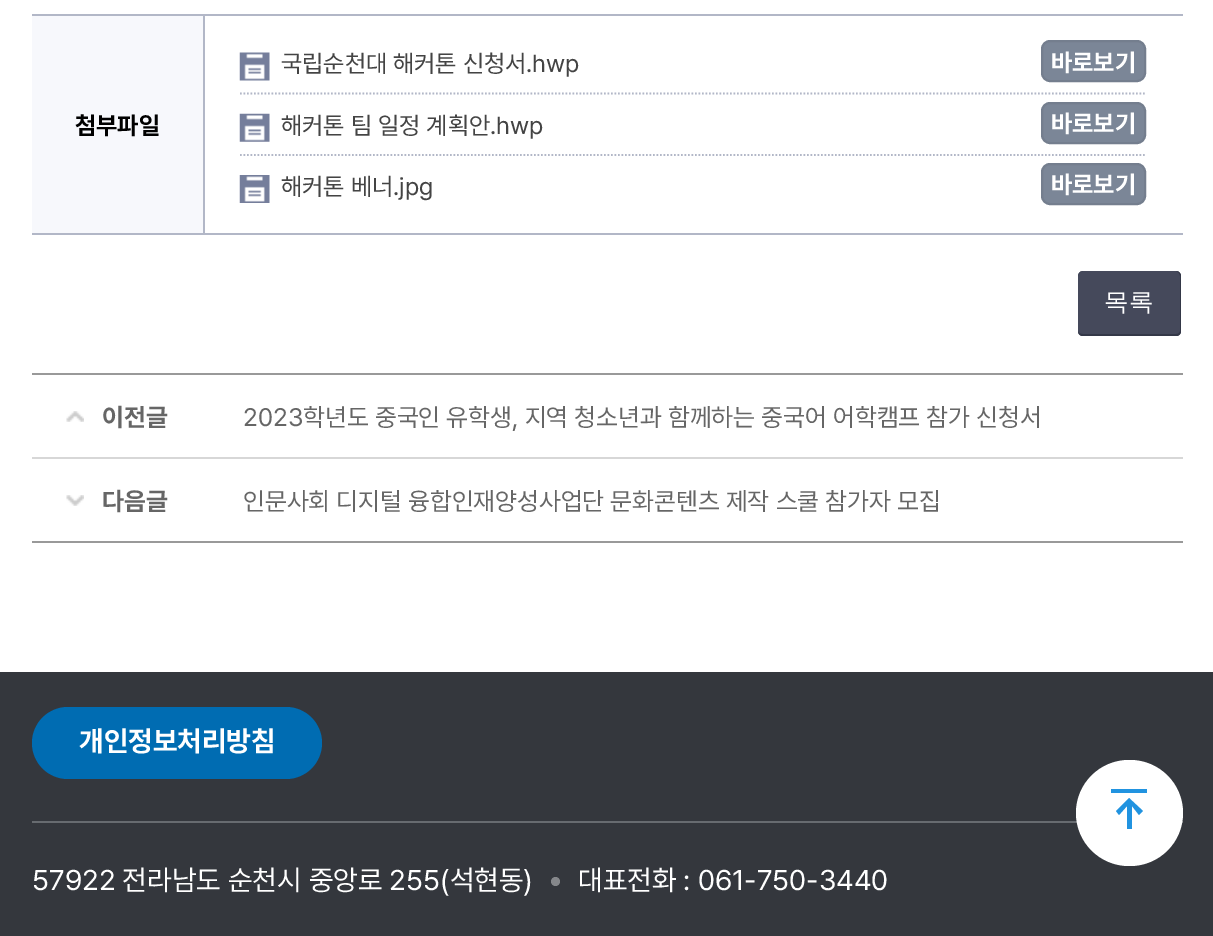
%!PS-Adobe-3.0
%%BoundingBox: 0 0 1213 936
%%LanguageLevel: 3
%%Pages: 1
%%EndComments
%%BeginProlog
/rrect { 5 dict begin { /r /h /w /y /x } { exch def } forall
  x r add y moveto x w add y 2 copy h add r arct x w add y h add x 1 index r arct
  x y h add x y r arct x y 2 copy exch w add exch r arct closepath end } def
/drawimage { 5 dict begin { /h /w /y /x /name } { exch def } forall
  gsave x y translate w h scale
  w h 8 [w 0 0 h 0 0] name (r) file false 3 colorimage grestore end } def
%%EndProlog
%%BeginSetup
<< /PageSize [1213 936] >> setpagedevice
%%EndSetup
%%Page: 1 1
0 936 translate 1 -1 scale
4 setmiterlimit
1 setgray
0 0 1213 936 rectfill
0.698 0.718 0.78 setrgbcolor
203 233 980 2 rectfill
203 14 2 221 rectfill
32 14 1151 2 rectfill
0.969 0.973 0.988 setrgbcolor
32 16 171 217 rectfill
0.698 0.718 0.78 setrgbcolor
32 233 173 2 rectfill
(images/1.raw) 239 52 31 29 drawimage
0.482 0.525 0.592 setrgbcolor
1042 41 103 40 8 rrect gsave fill grestore
0.455 0.494 0.557 setrgbcolor
2 setlinewidth
stroke
0.698 0.718 0.78 setrgbcolor
1.8 setlinewidth
[1.75 1.75] 0 setdash
newpath 240 93.5 moveto 1146 93.5 lineto stroke
(images/2.raw) 239 113 31 29 drawimage
0.482 0.525 0.592 setrgbcolor
1042 103 103 40 8 rrect gsave fill grestore
0.455 0.494 0.557 setrgbcolor
2 setlinewidth
[] 0 setdash
stroke
0.698 0.718 0.78 setrgbcolor
1.8 setlinewidth
[1.75 1.75] 0 setdash
newpath 240 155 moveto 1146 155 lineto stroke
(images/3.raw) 239 175 31 28 drawimage
0.482 0.525 0.592 setrgbcolor
1042 164 103 40 8 rrect gsave fill grestore
0.455 0.494 0.557 setrgbcolor
2 setlinewidth
[] 0 setdash
stroke
0.271 0.286 0.357 setrgbcolor
1078 271 103 65 5 rrect fill
0.204 0.22 0.282 setrgbcolor
newpath 1083 271 moveto 1176 271 lineto 1179 271 1181 274 1181 276 curveto 1181 331 lineto 1181 334 1179 336 1176 336 curveto 1083 336 lineto 1080 336 1078 334 1078 331 curveto 1078 276 lineto 1078 274 1080 271 1083 271 curveto closepath 1083 271 moveto 1176 271 lineto 1178 271 1180 274 1180 276 curveto 1180 331 lineto 1180 333 1178 334 1176 334 curveto 1083 334 lineto 1080 334 1078 333 1078 331 curveto 1078 276 lineto 1078 274 1080 271 1083 271 curveto closepath eofill
0.6 setgray
32 373 1151 2 rectfill
32 541 1151 2 rectfill
(images/4.raw) 66 411 18 11 drawimage
0.843 setgray
32 457 1151 2 rectfill
(images/5.raw) 66 495 18 11 drawimage
0.204 0.216 0.239 setrgbcolor
0 672 1213 264 rectfill
0.404 0.42 0.439 setrgbcolor
32 821 1151 2 rectfill
0 0.424 0.698 setrgbcolor
32 707 290 72 36 rrect fill
1 setgray
1076 760 107 106 53 rrect fill
0.129 0.576 0.878 setrgbcolor
newpath 1127 806 moveto 1127 829 lineto 1132 829 lineto 1132 806 lineto 1139 815 lineto 1143 811 lineto 1129 798 lineto 1116 811 lineto 1119 815 lineto closepath 1111 789 moveto 1147 789 lineto 1147 793 lineto 1111 793 lineto closepath fill
0.522 0.529 0.545 setrgbcolor
newpath 555.5 881.5 4.5 0 360 arc closepath fill
/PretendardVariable-Bold [24.5 0 0 -24.5 0 0] selectfont
0 setgray
75 134 moveto (첨부파일) show
/PretendardVariable-Regular [24.5 0 0 -24.5 0 0] selectfont
0.267 setgray
281 72 moveto (국립순천대 해커톤 신청서.hwp) show
/PretendardVariable-Bold [24.5 0 0 -24.5 0 0] selectfont
1 setgray
1051 71 moveto (바로보기) show
/PretendardVariable-Regular [24.5 0 0 -24.5 0 0] selectfont
0.267 setgray
281 134 moveto (해커톤 팀 일정 계획안.hwp) show
/PretendardVariable-Bold [24.5 0 0 -24.5 0 0] selectfont
1 setgray
1051 132 moveto (바로보기) show
/PretendardVariable-Regular [24.5 0 0 -24.5 0 0] selectfont
0.267 setgray
281 195 moveto (해커톤 베너.jpg) show
/PretendardVariable-Bold [24.5 0 0 -24.5 0 0] selectfont
1 setgray
1051 193 moveto (바로보기) show
/WenQuanYiZenHei-Medium [24.5 0 0 -24.5 0 0] selectfont
1104 310 moveto (목록) show
/PretendardVariable-Bold [25.2 0 0 -25.2 0 0] selectfont
0.4 setgray
102 426 moveto (이전글) show
/PretendardVariable-Regular [25.2 0 0 -25.2 0 0] selectfont
243 426 moveto (2023학년도 중국인 유학생, 지역 청소년과 함께하는 중국어 어학캠프 참가 신청서) show
/PretendardVariable-Bold [25.2 0 0 -25.2 0 0] selectfont
102 510 moveto (다음글) show
/PretendardVariable-Regular [25.2 0 0 -25.2 0 0] selectfont
243 510 moveto (인문사회 디지털 융합인재양성사업단 문화콘텐츠 제작 스쿨 참가자 모집) show
/PretendardVariable-Bold [28.4 0 0 -28.4 0 0] selectfont
1 setgray
79 751 moveto (개인정보처리방침) show
/PretendardVariable-Regular [28.4 0 0 -28.4 0 0] selectfont
32 890 moveto (57922 전라남도 순천시 중앙로 255\(석현동\)) show
578 890 moveto (대표전화 : 061-750-3440) show
showpage
%%EOF
